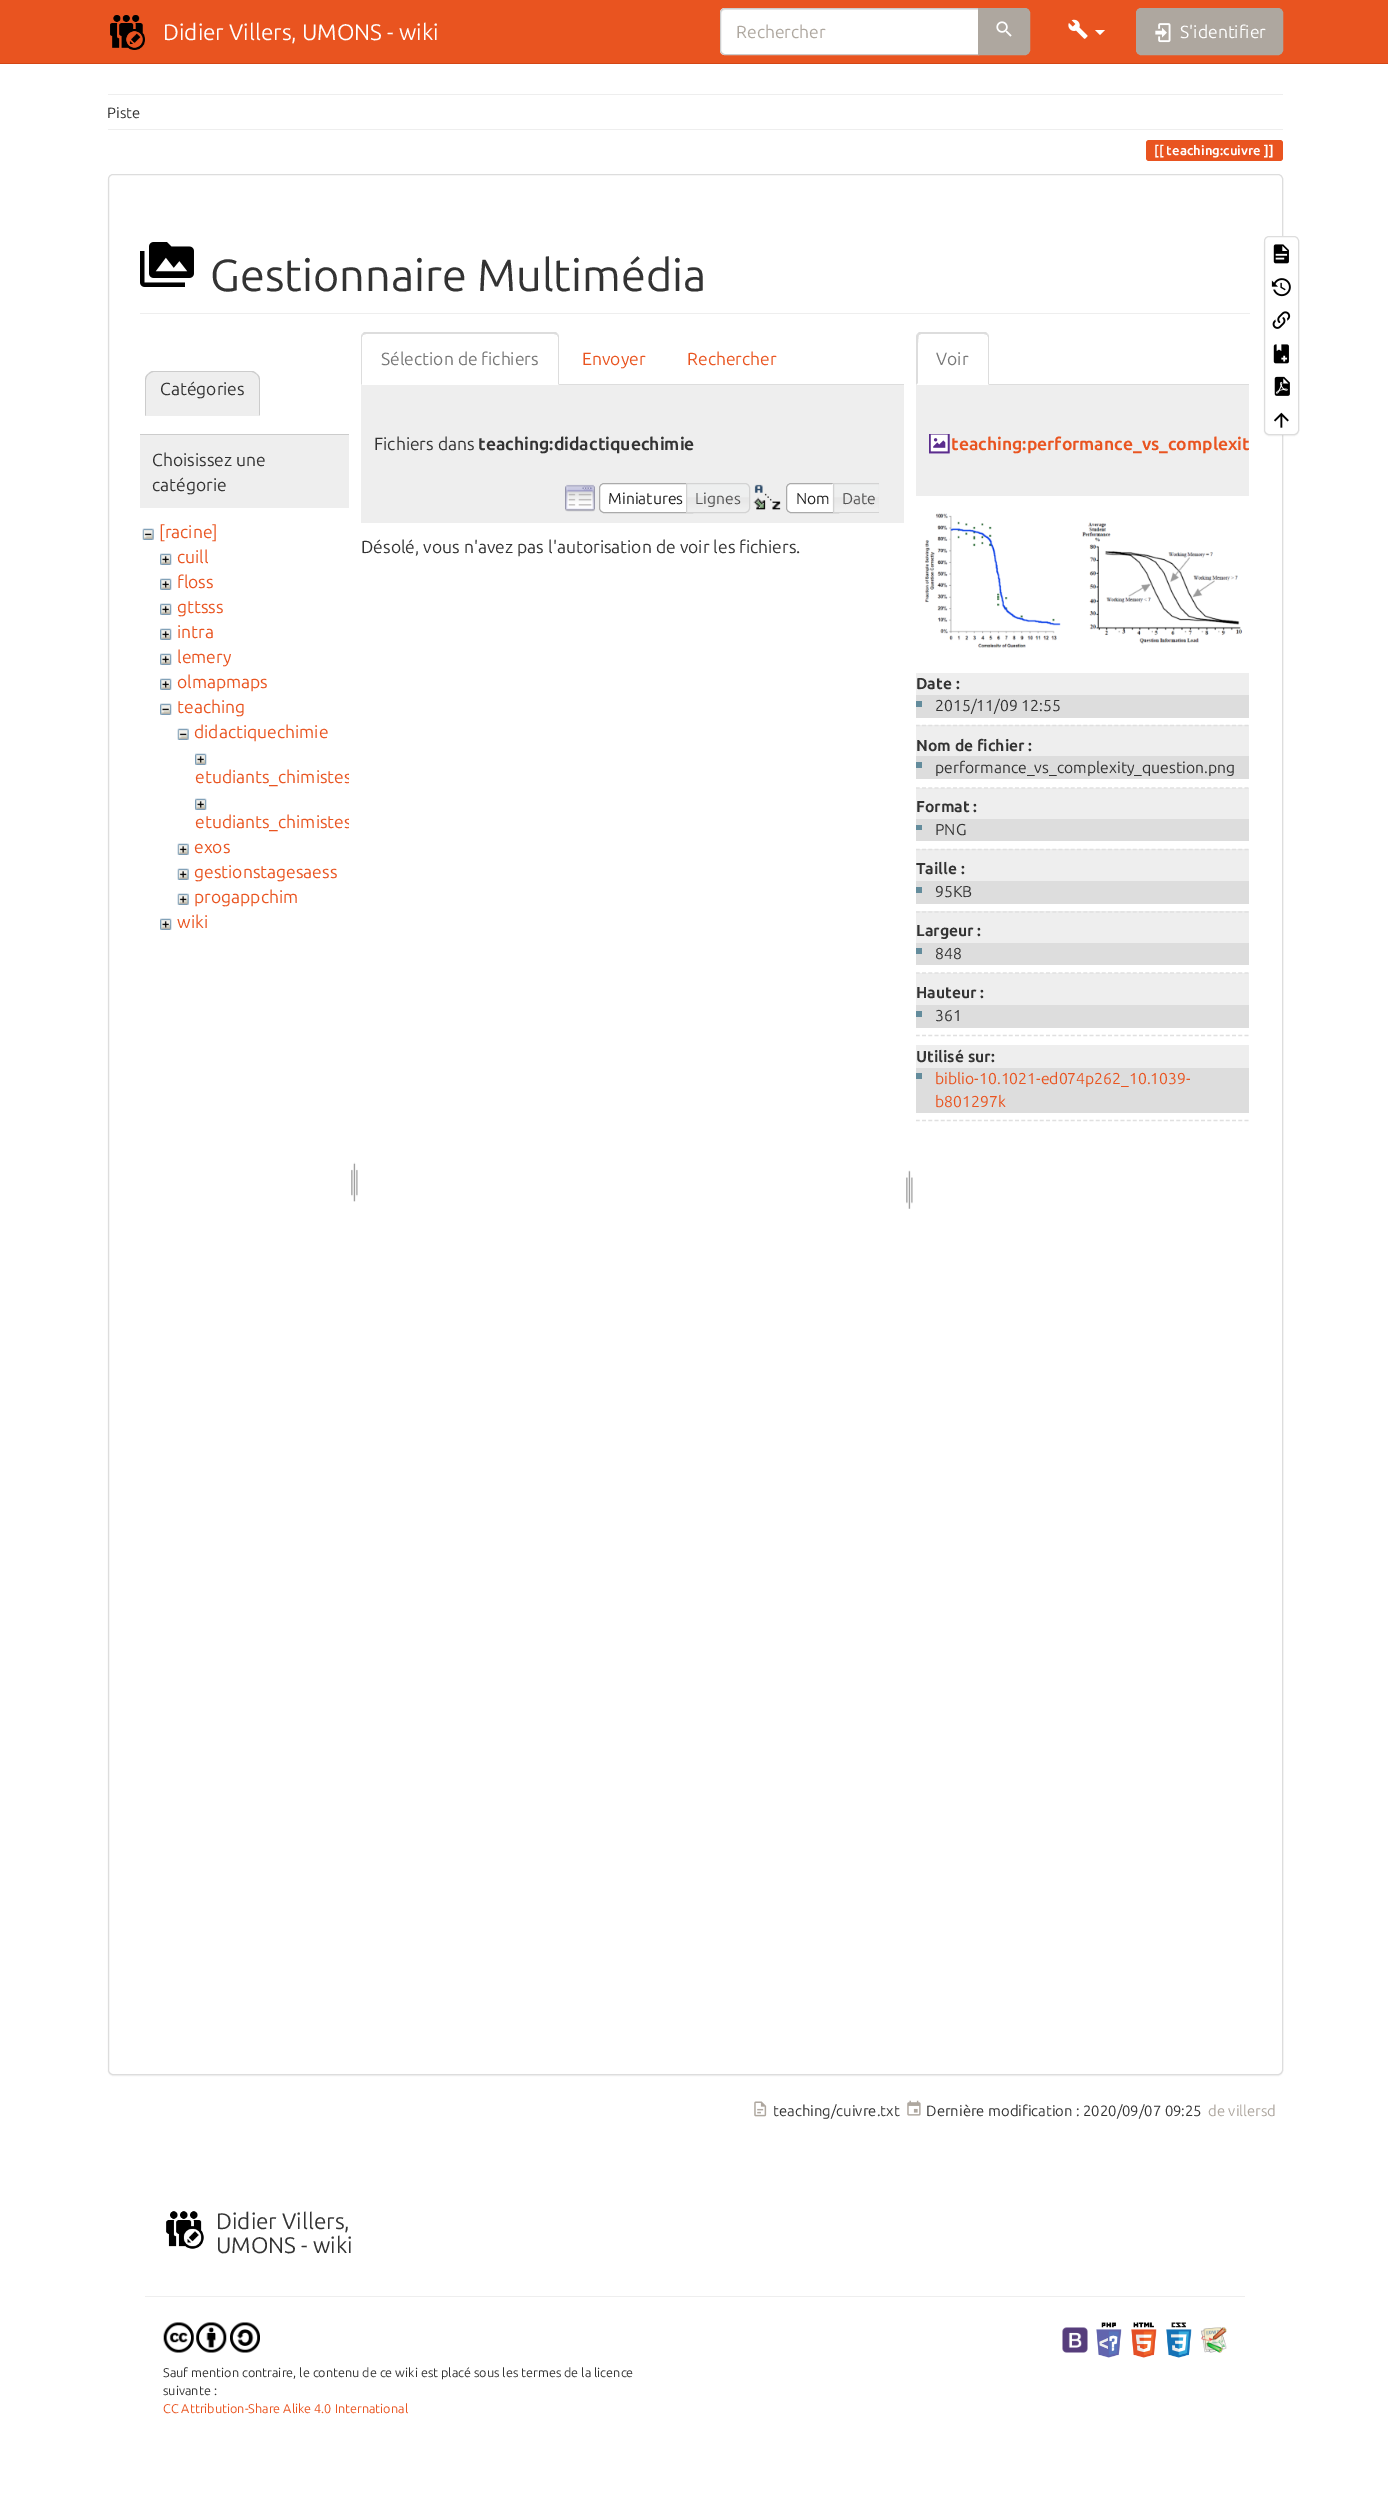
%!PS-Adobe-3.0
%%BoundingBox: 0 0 1388 2502
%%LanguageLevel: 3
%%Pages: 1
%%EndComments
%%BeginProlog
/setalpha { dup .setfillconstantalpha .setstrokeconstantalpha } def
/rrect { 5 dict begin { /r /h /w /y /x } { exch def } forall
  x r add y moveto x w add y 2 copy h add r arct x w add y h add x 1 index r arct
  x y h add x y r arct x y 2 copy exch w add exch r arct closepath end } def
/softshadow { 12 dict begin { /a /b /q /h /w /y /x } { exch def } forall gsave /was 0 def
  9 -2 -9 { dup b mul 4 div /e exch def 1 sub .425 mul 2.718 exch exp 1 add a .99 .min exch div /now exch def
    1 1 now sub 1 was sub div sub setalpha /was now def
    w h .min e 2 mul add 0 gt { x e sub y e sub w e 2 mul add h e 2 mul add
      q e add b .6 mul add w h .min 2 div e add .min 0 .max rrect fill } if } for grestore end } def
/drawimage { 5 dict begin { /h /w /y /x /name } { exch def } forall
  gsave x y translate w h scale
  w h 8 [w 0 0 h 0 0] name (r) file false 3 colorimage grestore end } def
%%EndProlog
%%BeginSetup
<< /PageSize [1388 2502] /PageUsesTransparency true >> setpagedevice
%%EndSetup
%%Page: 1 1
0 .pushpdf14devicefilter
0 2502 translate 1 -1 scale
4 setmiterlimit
1 setgray
0 0 1388 2502 rectfill
0.914 0.329 0.125 setrgbcolor
0 0 1388 63 rectfill
0.827 0.275 0.082 setrgbcolor
0 63 1388 1 rectfill
(images/1.raw) 110 15 35 35 drawimage
1 setgray
newpath 725 8 moveto 979 8 lineto 979 55 lineto 725 55 lineto 722 55 720 53 720 50 curveto 720 13 lineto 720 10 722 8 725 8 curveto closepath fill
0.925 setgray
newpath 725 10 moveto 978 10 lineto 978 9 lineto 725 9 lineto 723 9 721 11 721 13 curveto 721 14 lineto 721 12 723 10 725 10 curveto closepath fill
0.8 setgray
newpath 725 8.5 moveto 978.5 8.5 lineto 978.5 54.5 lineto 725 54.5 lineto 722.5 54.5 720.5 52.5 720.5 50 curveto 720.5 13 lineto 720.5 10.5 722.5 8.5 725 8.5 curveto closepath stroke
0.682 0.655 0.624 setrgbcolor
newpath 978.5 8.5 moveto 1025 8.5 lineto 1027.5 8.5 1029.5 10.5 1029.5 13 curveto 1029.5 50 lineto 1029.5 52.5 1027.5 54.5 1025 54.5 curveto 978.5 54.5 lineto closepath gsave fill grestore
stroke
(images/2.raw) 996 21 16 16 drawimage
(images/3.raw) 1068 19 20 20 drawimage
1 setgray
newpath 1095 30 moveto 1105 30 lineto 1100 35 lineto closepath fill
0.682 0.655 0.624 setrgbcolor
1136.5 8.5 146 46 4.5 rrect gsave fill grestore
stroke
(images/4.raw) 1155 23 16 20 drawimage
0.933 setgray
108 94 1175 1 rectfill
108 129 1175 1 rectfill
0.914 0.329 0.125 setrgbcolor
newpath 1149 140 moveto 1168 140 lineto 1168 161 lineto 1149 161 lineto 1147.5 161 1146 159.5 1146 158 curveto 1146 143 lineto 1146 141.5 1147.5 140 1149 140 curveto closepath fill
1168 140 93 21 rectfill
newpath 1261 140 moveto 1280 140 lineto 1281.5 140 1283 141.5 1283 143 curveto 1283 158 lineto 1283 159.5 1281.5 161 1280 161 curveto 1261 161 lineto closepath fill
0 setgray
108 175 1175 1901 5 0.5 0.05 softshadow
1 setgray
108.5 174.5 1174 1900 4.5 rrect gsave fill grestore
0.867 setgray
stroke
0.933 setgray
140 313 1110 1 rectfill
(images/5.raw) 140 242 54 45 drawimage
newpath 154 371 moveto 251 371 lineto 256 371 260 375 260 380 curveto 260 416 lineto 145 416 lineto 145 380 lineto 145 375 149 371 154 371 curveto closepath fill
0.8 setgray
newpath 154 372 moveto 152 372 150 373 148 375 curveto 148 374 lineto 149 373 150 372 152 371 curveto 253 371 lineto 255 372 256 373 257 374 curveto 257 375 lineto 255 373 253 372 251 372 curveto closepath fill
newpath 260 416 moveto 260 380 lineto 260 378 259 375 257 374 curveto 257 375 lineto 258 376 259 378 259 380 curveto 259 415 lineto closepath fill
0.933 setgray
newpath 260 416 moveto 145 416 lineto 146 415 lineto 259 415 lineto closepath fill
0.8 setgray
newpath 145 380 moveto 145 416 lineto 146 415 lineto 146 380 lineto 146 378 147 376 148 375 curveto 148 374 lineto 146 375 145 378 145 380 curveto closepath fill
0.933 setgray
140 435 209 73 rectfill
0.8 setgray
140 434 209 1 rectfill
(images/6.raw) 142 528 12 12 drawimage
(images/7.raw) 160 553 12 12 drawimage
(images/7.raw) 160 578 12 12 drawimage
(images/7.raw) 160 603 12 12 drawimage
(images/7.raw) 160 628 12 12 drawimage
(images/7.raw) 160 653 12 12 drawimage
(images/7.raw) 160 678 12 12 drawimage
(images/8.raw) 160 703 12 12 drawimage
(images/6.raw) 177 728 12 12 drawimage
(images/7.raw) 195 753 12 12 drawimage
(images/7.raw) 195 798 12 12 drawimage
(images/9.raw) 177 843 12 12 drawimage
(images/9.raw) 177 868 12 12 drawimage
(images/9.raw) 177 893 12 12 drawimage
(images/7.raw) 160 918 12 12 drawimage
(images/10.raw) 351 1162 7 40 drawimage
0.867 setgray
559 384 345 1 rectfill
newpath 366 334 moveto 363 335 lineto 362 334 lineto 364 332 lineto 556 332 lineto 558 334 lineto 557 335 lineto 554 334 lineto closepath fill
newpath 559 336 moveto 559 385 lineto 558 384 lineto 558 337 lineto 557 335 lineto 558 334 lineto closepath fill
newpath 361 385 moveto 361 336 lineto 362 334 lineto 363 335 lineto 362 337 lineto 362 384 lineto closepath fill
0.933 setgray
361 385 543 138 rectfill
(images/11.raw) 565 484 30 28 drawimage
1 setgray
newpath 604 483 moveto 693 483 lineto 693 513 lineto 604 513 lineto 601 513 599 511 599 508 curveto 599 488 lineto 599 485 601 483 604 483 curveto closepath fill
(images/12.raw) 599 483 4 4 drawimage
0.667 setgray
newpath 604 483.5 moveto 692.5 483.5 lineto 692.5 512.5 lineto 604 512.5 lineto 601.5 512.5 599.5 510.5 599.5 508 curveto 599.5 488 lineto 599.5 485.5 601.5 483.5 604 483.5 curveto closepath stroke
(images/13.raw) 687 483 63 29 drawimage
0.827 setgray
newpath 686.5 483.5 moveto 745 483.5 lineto 747.5 483.5 749.5 485.5 749.5 488 curveto 749.5 508 lineto 749.5 510.5 747.5 512.5 745 512.5 curveto 686.5 512.5 lineto closepath stroke
(images/14.raw) 753 484 28 26 drawimage
1 setgray
newpath 791 483 moveto 839 483 lineto 839 513 lineto 791 513 lineto 788 513 786 511 786 508 curveto 786 488 lineto 786 485 788 483 791 483 curveto closepath fill
(images/15.raw) 787 483 3 2 drawimage
0.667 setgray
newpath 791 483.5 moveto 838.5 483.5 lineto 838.5 512.5 lineto 791 512.5 lineto 788.5 512.5 786.5 510.5 786.5 508 curveto 786.5 488 lineto 786.5 485.5 788.5 483.5 791 483.5 curveto closepath stroke
(images/16.raw) 832 483 47 29 drawimage
gsave
555 483 324 30 rectclip
0.827 setgray
newpath 833.5 483.5 moveto 880 483.5 lineto 882.5 483.5 884.5 485.5 884.5 488 curveto 884.5 508 lineto 884.5 510.5 882.5 512.5 880 512.5 curveto 833.5 512.5 lineto closepath stroke
grestore
(images/17.raw) 906 1170 7 39 drawimage
0.867 setgray
989 384 260 1 rectfill
newpath 921 334 moveto 919 335 lineto 917 334 lineto 919 332 lineto 986 332 lineto 988 334 lineto 987 335 lineto 984 334 lineto closepath fill
newpath 989 336 moveto 989 385 lineto 988 384 lineto 988 337 lineto 987 335 lineto 988 334 lineto closepath fill
newpath 916 385 moveto 916 336 lineto 917 334 lineto 919 335 lineto 917 337 918 377 918 383 curveto closepath fill
0.933 setgray
916 385 333 111 rectfill
(images/18.raw) 929 434 21 20 drawimage
(images/19.raw) 925 513 318 135 drawimage
0.878 setgray
1.2 setlinewidth
[3.75 2.45] 0 setdash
newpath 916 1035.5 moveto 1249 1035.5 lineto stroke
0.933 setgray
916 673 333 22 rectfill
0.867 setgray
916 695 333 23 rectfill
0.388 0.549 0.612 setrgbcolor
916 701 6 6 rectfill
0.933 setgray
916 725 333 31 rectfill
0.878 setgray
newpath 916 725.5 moveto 1249 725.5 lineto stroke
0.867 setgray
916 756 333 23 rectfill
0.388 0.549 0.612 setrgbcolor
916 762 6 6 rectfill
0.933 setgray
916 788 333 31 rectfill
0.878 setgray
newpath 916 788 moveto 1249 788 lineto stroke
0.867 setgray
916 819 333 22 rectfill
0.388 0.549 0.612 setrgbcolor
916 825 6 5 rectfill
0.933 setgray
916 849 333 32 rectfill
0.878 setgray
newpath 916 849.5 moveto 1249 849.5 lineto stroke
0.867 setgray
916 881 333 23 rectfill
0.388 0.549 0.612 setrgbcolor
916 887 6 6 rectfill
0.933 setgray
916 911 333 32 rectfill
0.878 setgray
newpath 916 912 moveto 1249 912 lineto stroke
0.867 setgray
916 943 333 22 rectfill
0.388 0.549 0.612 setrgbcolor
916 948 6 6 rectfill
0.933 setgray
916 973 333 32 rectfill
0.878 setgray
newpath 916 973 moveto 1249 973 lineto stroke
0.867 setgray
916 1005 333 23 rectfill
0.388 0.549 0.612 setrgbcolor
916 1011 6 6 rectfill
0.878 setgray
newpath 916 1120.5 moveto 1249 1120.5 lineto stroke
0.933 setgray
916 1045 333 23 rectfill
0.867 setgray
916 1068 333 45 rectfill
0.388 0.549 0.612 setrgbcolor
916 1073 6 6 rectfill
0 setgray
1264 238 35 198 5 0.5 0.05 softshadow
1 setgray
1264.5 236.5 34 198 4.5 rrect gsave fill grestore
0.867 setgray
1 setlinewidth
[] 0 setdash
stroke
(images/20.raw) 1273 244 16 20 drawimage
(images/21.raw) 1271 278 20 19 drawimage
(images/22.raw) 1272 311 19 18 drawimage
(images/23.raw) 1273 344 16 20 drawimage
(images/24.raw) 1274 376 16 20 drawimage
(images/25.raw) 1274 412 15 16 drawimage
(images/26.raw) 754 2101 13 16 drawimage
(images/27.raw) 907 2100 14 16 drawimage
(images/28.raw) 166 2211 38 38 drawimage
0.933 setgray
145 2296 1100 1 rectfill
(images/29.raw) 1062 2327 26 26 drawimage
(images/30.raw) 1096 2322 26 36 drawimage
(images/31.raw) 1131 2322 26 36 drawimage
(images/32.raw) 1166 2322 26 36 drawimage
(images/33.raw) 1201 2327 26 26 drawimage
(images/34.raw) 163 2322 31 31 drawimage
(images/35.raw) 196 2322 31 31 drawimage
(images/36.raw) 230 2322 30 31 drawimage
/Ubuntu-Regular [22.5 0 0 -22.5 0 0] selectfont
1 setgray
163 40 moveto (Didier Villers, UMONS - wiki) show
/Ubuntu-Regular [17.5 0 0 -17.5 0 0] selectfont
0.682 0.655 0.624 setrgbcolor
736 38 moveto (Rechercher) show
1 setgray
1180 38 moveto (S'identifier) show
/Ubuntu-Regular [14.9 0 0 -14.9 0 0] selectfont
0.2 setgray
107 118 moveto (Piste) show
/Ubuntu-Bold [13.1 0 0 -13.1 0 0] selectfont
1 setgray
1154 155 moveto ([[ teaching:cuivre ]]) show
/Ubuntu-Regular [45 0 0 -45 0 0] selectfont
0.2 setgray
210 291 moveto (Gestionnaire Multimédia) show
/Ubuntu-Regular [17.5 0 0 -17.5 0 0] selectfont
160 395 moveto (Catégories) show
152 466 moveto (Choisissez une) show
152 491 moveto (catégorie) show
0.914 0.329 0.125 setrgbcolor
159 538 moveto ([racine]) show
177 563 moveto (cuill) show
177 588 moveto (floss) show
177 613 moveto (gttsss) show
177 638 moveto (intra) show
177 663 moveto (lemery) show
177 688 moveto (olmapmaps) show
177 713 moveto (teaching) show
194 738 moveto (didactiquechimie) show
gsave
195 745 154 45 rectclip
195 783 moveto (etudiants_chimistes) show
grestore
gsave
195 790 154 45 rectclip
195 828 moveto (etudiants_chimistes) show
grestore
194 853 moveto (exos) show
194 878 moveto (gestionstagesaess) show
194 903 moveto (progappchim) show
177 928 moveto (wiki) show
0.467 setgray
381 365 moveto (Sélection de fichiers) show
0.914 0.329 0.125 setrgbcolor
582 365 moveto (Envoyer) show
687 365 moveto (Rechercher) show
0.2 setgray
374 450 moveto (Fichiers dans) show
/Ubuntu-Bold [17.5 0 0 -17.5 0 0] selectfont
478 450 moveto (teaching:didactiquechimie) show
/Ubuntu-Regular [15.75 0 0 -15.75 0 0] selectfont
0.129 setgray
608 504 moveto (Miniatures) show
0.333 setgray
695 504 moveto (Lignes) show
0.129 setgray
796 504 moveto (Nom) show
0.333 setgray
842 504 moveto (Date) show
/Ubuntu-Regular [17.5 0 0 -17.5 0 0] selectfont
0.2 setgray
361 553 moveto (Désolé, vous n'avez pas l'autorisation de voir les fichiers.) show
0.467 setgray
936 365 moveto (Voir) show
gsave
916 385 333 111 rectclip
/Ubuntu-Bold [17.5 0 0 -17.5 0 0] selectfont
0.914 0.329 0.125 setrgbcolor
951 450 moveto (teaching:performance_vs_complexit) show
grestore
/Ubuntu-Bold [15.75 0 0 -15.75 0 0] selectfont
0.2 setgray
916 689 moveto (Date :) show
/Ubuntu-Regular [15.75 0 0 -15.75 0 0] selectfont
935 711 moveto (2015/11/09 12:55) show
/Ubuntu-Bold [15.75 0 0 -15.75 0 0] selectfont
916 751 moveto (Nom de fichier :) show
/Ubuntu-Regular [15.75 0 0 -15.75 0 0] selectfont
935 773 moveto (performance_vs_complexity_question.png) show
/Ubuntu-Bold [15.75 0 0 -15.75 0 0] selectfont
916 812 moveto (Format :) show
/Ubuntu-Regular [15.75 0 0 -15.75 0 0] selectfont
935 835 moveto (PNG) show
/Ubuntu-Bold [15.75 0 0 -15.75 0 0] selectfont
916 874 moveto (Taille :) show
/Ubuntu-Regular [15.75 0 0 -15.75 0 0] selectfont
935 897 moveto (95KB) show
/Ubuntu-Bold [15.75 0 0 -15.75 0 0] selectfont
916 936 moveto (Largeur :) show
/Ubuntu-Regular [15.75 0 0 -15.75 0 0] selectfont
935 959 moveto (848) show
/Ubuntu-Bold [15.75 0 0 -15.75 0 0] selectfont
916 998 moveto (Hauteur :) show
/Ubuntu-Regular [15.75 0 0 -15.75 0 0] selectfont
935 1021 moveto (361) show
/Ubuntu-Bold [15.75 0 0 -15.75 0 0] selectfont
916 1062 moveto (Utilisé sur:) show
/Ubuntu-Regular [15.75 0 0 -15.75 0 0] selectfont
0.914 0.329 0.125 setrgbcolor
935 1084 moveto (biblio-10.1021-ed074p262_10.1039-) show
935 1107 moveto (b801297k) show
/Ubuntu-Regular [14.9 0 0 -14.9 0 0] selectfont
0.2 setgray
773 2116 moveto (teaching/cuivre.txt) show
926 2116 moveto (Dernière modification : 2020/09/07 09:25) show
0.682 0.655 0.624 setrgbcolor
1208 2116 moveto (de villersd) show
/Ubuntu-Regular [22.5 0 0 -22.5 0 0] selectfont
0.2 setgray
216 2229 moveto (Didier Villers,) show
216 2253 moveto (UMONS - wiki) show
/Ubuntu-Regular [12.65 0 0 -12.65 0 0] selectfont
163 2377 moveto (Sauf mention contraire, le contenu de ce wiki est placé sous les termes de la licence) show
163 2395 moveto (suivante :) show
0.914 0.329 0.125 setrgbcolor
163 2413 moveto (CC Attribution-Share Alike 4.0 International) show
.poppdf14devicefilter showpage
%%EOF
